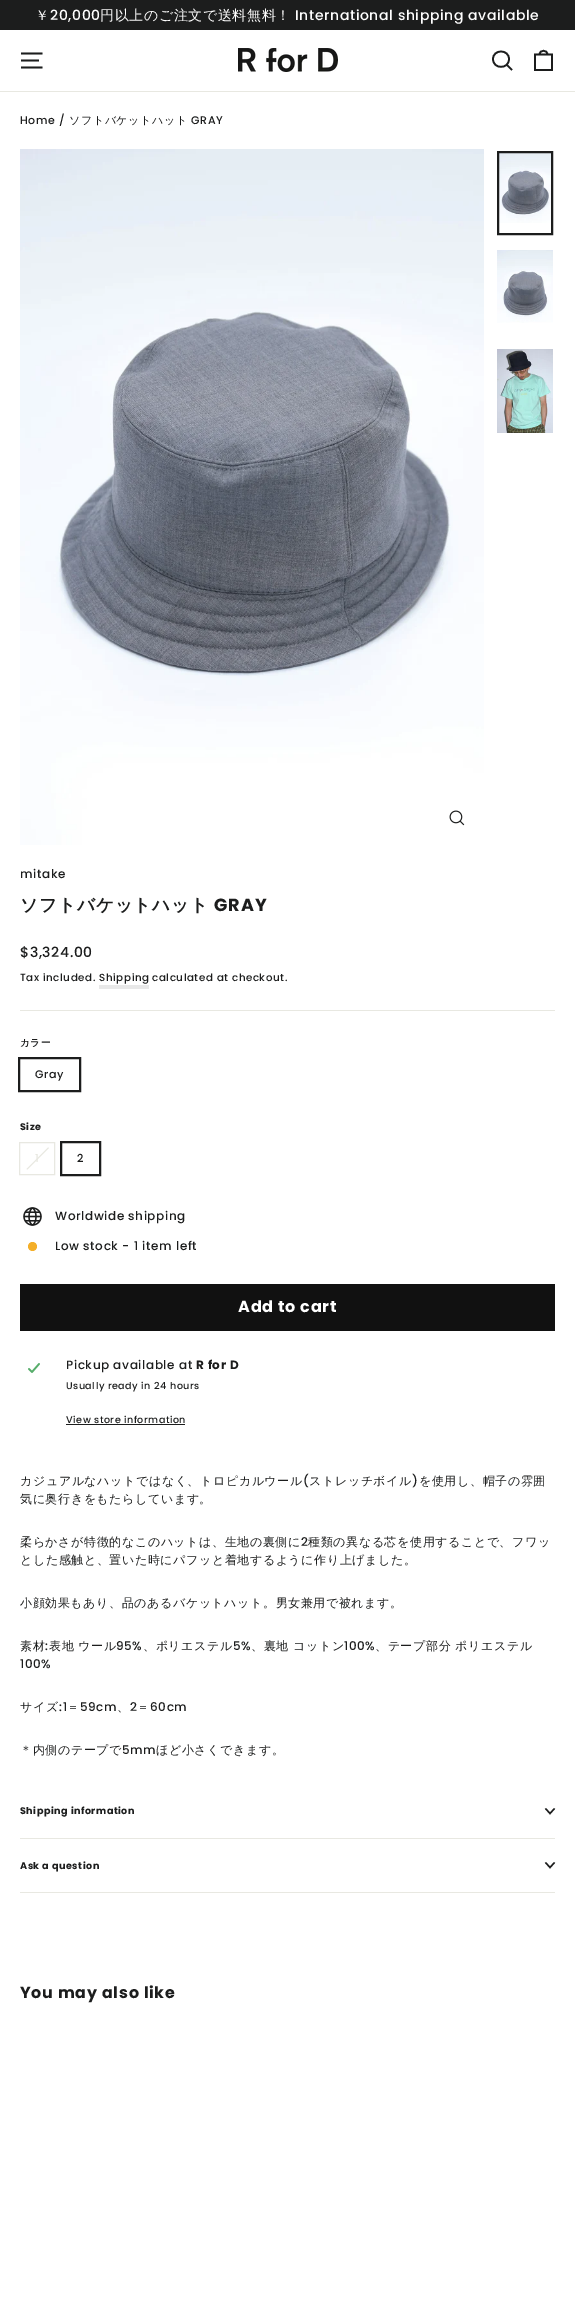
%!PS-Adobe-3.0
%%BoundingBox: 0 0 575 2312
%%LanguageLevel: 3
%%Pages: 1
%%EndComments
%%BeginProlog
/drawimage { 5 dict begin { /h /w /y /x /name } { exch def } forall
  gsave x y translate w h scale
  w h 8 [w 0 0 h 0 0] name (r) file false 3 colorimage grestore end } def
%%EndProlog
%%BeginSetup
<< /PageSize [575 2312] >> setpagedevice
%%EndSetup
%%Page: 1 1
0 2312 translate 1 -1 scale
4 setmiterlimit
1 setgray
0 0 575 2312 rectfill
0.11 0.114 0.114 setrgbcolor
0 0 575 30 rectfill
0.91 0.91 0.882 setrgbcolor
0 91 575 1 rectfill
0.11 0.114 0.114 setrgbcolor
1.7 setlinewidth
newpath 21 53.5 moveto 42.5 53.5 lineto 21 60.5 moveto 39 60.5 lineto 21 67.5 moveto 42.5 67.5 lineto stroke
(images/1.raw) 238 48 100 24 drawimage
newpath 509 59 moveto 509 69.5 493 69.5 493 59 curveto 493 49 509 49 509 59 curveto closepath 512 70 moveto 506.5 64.5 lineto stroke
newpath 535 54.5 moveto 552 54.5 lineto 552 70 lineto 535 70 lineto closepath 539.5 54.5 moveto 539.5 49.5 547.5 49.5 547.5 54.5 curveto stroke
(images/2.raw) 20 149 464 696 drawimage
(images/3.raw) 449 810 16 16 drawimage
(images/4.raw) 499 153 52 70 drawimage
2 setlinewidth
498 152 54 82 rectstroke
(images/5.raw) 497 250 56 73 drawimage
(images/6.raw) 497 349 56 84 drawimage
0.91 setgray
99 985 50 4 rectfill
0.91 0.91 0.882 setrgbcolor
20 1010 535 1 rectfill
0.11 0.114 0.114 setrgbcolor
19 1058 61 33 rectstroke
0.91 0.91 0.882 setrgbcolor
1 setlinewidth
19.5 1142.5 35 32 rectstroke
newpath 48 1147.5 moveto 49 1148 lineto 27.5 1169.5 lineto 26.5 1169 lineto closepath fill
0.11 0.114 0.114 setrgbcolor
2 setlinewidth
61 1142 39 33 rectstroke
(images/7.raw) 23 1207 19 19 drawimage
0.957 0.686 0.161 setrgbcolor
newpath 32.5 1246.5 4.5 0 360 arc closepath fill
0.067 setgray
20 1284 535 47 rectfill
(images/8.raw) 28 1363 12 10 drawimage
0.11 0.114 0.114 setrgbcolor
66 1424 119 1 rectfill
0.91 0.91 0.882 setrgbcolor
20 1838 535 1 rectfill
0.11 0.114 0.114 setrgbcolor
1.4 setlinewidth
newpath 545.5 1808.5 moveto 550 1813.5 lineto 554.5 1808.5 lineto stroke
0.91 0.91 0.882 setrgbcolor
20 1892 535 1 rectfill
0.11 0.114 0.114 setrgbcolor
newpath 545.5 1862.5 moveto 550 1867.5 lineto 554.5 1862.5 lineto stroke
/WenQuanYiZenHei-Medium [14 0 0 -14 0 0] selectfont
1 setgray
35 20 moveto 0.6 0 (￥) ashow
/Poppins-Medium [14 0 0 -14 0 0] selectfont
50 20 moveto 0.6 0 (20,000) ashow
/WenQuanYiZenHei-Medium [14 0 0 -14 0 0] selectfont
100 20 moveto 0.6 0 (円以上のご注文で送料無料！) ashow
/Poppins-Medium [14 0 0 -14 0 0] selectfont
295 20 moveto 0.6 0 (International shipping available) ashow
/Poppins-Medium [11 0 0 -11 0 0] selectfont
0.11 0.114 0.114 setrgbcolor
20 124 moveto 0.6 0 (Home /) ashow
/WenQuanYiZenHei-Medium [11 0 0 -11 0 0] selectfont
69 124 moveto 0.6 0 (ソフトバケットハット) ashow
/Poppins-Medium [11 0 0 -11 0 0] selectfont
191 124 moveto 0.6 0 (GRAY) ashow
/Poppins-Medium [12 0 0 -12 0 0] selectfont
20 878 moveto 0.6 0 (mitake) ashow
/WenQuanYiZenHei-Bold [17.6 0 0 -17.6 0 0] selectfont
20 911 moveto 0.9 0 (ソフトバケットハット) ashow
/Poppins-Bold [17.6 0 0 -17.6 0 0] selectfont
214 911 moveto 0.9 0 (GRAY) ashow
/Poppins-Medium [14 0 0 -14 0 0] selectfont
20 957 moveto 0.6 0 ($3,324.00) ashow
/Poppins-Medium [10.25 0 0 -10.25 0 0] selectfont
20 981 moveto 0.6 0 (Tax included. Shipping) ashow
152 981 moveto 0.6 0 (calculated at checkout.) ashow
/WenQuanYiZenHei-Bold [9.6 0 0 -9.6 0 0] selectfont
20 1046 moveto 0.5 0 (カラー) ashow
/Poppins-Medium [11 0 0 -11 0 0] selectfont
35 1078 moveto 0.5 0 (Gray) ashow
/Poppins-Bold [9.6 0 0 -9.6 0 0] selectfont
20 1130 moveto 0.5 0 (Size) ashow
/Poppins-Medium [11 0 0 -11 0 0] selectfont
0.91 0.91 0.882 setrgbcolor
35 1162 moveto 0.5 0 (1) ashow
0.11 0.114 0.114 setrgbcolor
77 1162 moveto 0.5 0 (2) ashow
/Poppins-Medium [12 0 0 -12 0 0] selectfont
55 1220 moveto 0.6 0 (Worldwide shipping) ashow
55 1250 moveto 0.6 0 (Low stock - 1 item left) ashow
/Poppins-Bold [16 0 0 -16 0 0] selectfont
1 setgray
238 1312 moveto 0.75 0 (Add to cart) ashow
/Poppins-Medium [12 0 0 -12 0 0] selectfont
0.11 0.114 0.114 setrgbcolor
66 1369 moveto 0.6 0 (Pickup available at) ashow
/Poppins-Bold [12 0 0 -12 0 0] selectfont
196 1369 moveto 0.6 0 (R for D) ashow
/Poppins-Medium [9.6 0 0 -9.6 0 0] selectfont
66 1389 moveto 0.5 0 (Usually ready in 24 hours) ashow
66 1423 moveto 0.5 0 (View store information) ashow
/WenQuanYiZenHei-Medium [12 0 0 -12 0 0] selectfont
20 1485 moveto 0.6 0 (カジュアルなハットではなく、トロピカルウール) ashow
/Poppins-Medium [12 0 0 -12 0 0] selectfont
303 1485 moveto 0.6 0 (\() ashow
/WenQuanYiZenHei-Medium [12 0 0 -12 0 0] selectfont
309 1485 moveto 0.6 0 (ストレッチボイル) ashow
/Poppins-Medium [12 0 0 -12 0 0] selectfont
412 1485 moveto 0.6 0 (\)) ashow
/WenQuanYiZenHei-Medium [12 0 0 -12 0 0] selectfont
419 1485 moveto 0.6 0 (を使用し、帽子の雰囲) ashow
20 1503 moveto 0.6 0 (気に奥行きをもたらしています。) ashow
20 1546 moveto 0.6 0 (柔らかさが特徴的なこのハットは、生地の裏側に) ashow
/Poppins-Medium [12 0 0 -12 0 0] selectfont
301 1546 moveto 0.6 0 (2) ashow
/WenQuanYiZenHei-Medium [12 0 0 -12 0 0] selectfont
308 1546 moveto 0.6 0 (種類の異なる芯を使用することで、フワッ) ashow
20 1564 moveto 0.6 0 (とした感触と、置いた時にパフッと着地するように作り上げました。) ashow
20 1607 moveto 0.6 0 (小顔効果もあり、品のあるバケットハット。男女兼用で被れます。) ashow
20 1650 moveto 0.6 0 (素材) ashow
/Poppins-Medium [12 0 0 -12 0 0] selectfont
45 1650 moveto 0.6 0 (:) ashow
/WenQuanYiZenHei-Medium [12 0 0 -12 0 0] selectfont
49 1650 moveto 0.6 0 (表地 ウール) ashow
/Poppins-Medium [12 0 0 -12 0 0] selectfont
116 1650 moveto 0.6 0 (95%) ashow
/WenQuanYiZenHei-Medium [12 0 0 -12 0 0] selectfont
143 1650 moveto 0.6 0 (、ポリエステル) ashow
/Poppins-Medium [12 0 0 -12 0 0] selectfont
233 1650 moveto 0.6 0 (5%) ashow
/WenQuanYiZenHei-Medium [12 0 0 -12 0 0] selectfont
251 1650 moveto 0.6 0 (、裏地 コットン) ashow
/Poppins-Medium [12 0 0 -12 0 0] selectfont
344 1650 moveto 0.6 0 (100%) ashow
/WenQuanYiZenHei-Medium [12 0 0 -12 0 0] selectfont
375 1650 moveto 0.6 0 (、テープ部分 ポリエステル) ashow
/Poppins-Medium [12 0 0 -12 0 0] selectfont
20 1668 moveto 0.6 0 (100%) ashow
/WenQuanYiZenHei-Medium [12 0 0 -12 0 0] selectfont
20 1711 moveto 0.6 0 (サイズ) ashow
/Poppins-Medium [12 0 0 -12 0 0] selectfont
59 1711 moveto 0.6 0 (:1) ashow
/WenQuanYiZenHei-Medium [12 0 0 -12 0 0] selectfont
67 1711 moveto 0.6 0 (＝) ashow
/Poppins-Medium [12 0 0 -12 0 0] selectfont
80 1711 moveto 0.6 0 (59cm) ashow
130 1711 moveto 0.6 0 (2) ashow
/WenQuanYiZenHei-Medium [12 0 0 -12 0 0] selectfont
137 1711 moveto 0.6 0 (＝) ashow
/Poppins-Medium [12 0 0 -12 0 0] selectfont
150 1711 moveto 0.6 0 (60cm) ashow
/WenQuanYiZenHei-Medium [12 0 0 -12 0 0] selectfont
117 1711 moveto 0.6 0 (、) ashow
20 1754 moveto 0.6 0 (＊内側のテープで) ashow
/Poppins-Medium [12 0 0 -12 0 0] selectfont
122 1754 moveto 0.6 0 (5mm) ashow
/WenQuanYiZenHei-Medium [12 0 0 -12 0 0] selectfont
156 1754 moveto 0.6 0 (ほど小さくできます。) ashow
/Poppins-Bold [9.6 0 0 -9.6 0 0] selectfont
20 1814 moveto 0.5 0 (Shipping information) ashow
20 1869 moveto 0.5 0 (Ask a question) ashow
/Poppins-Bold [15.9 0 0 -15.9 0 0] selectfont
20 1998 moveto 0.75 0 (You may also like) ashow
showpage
%%EOF
